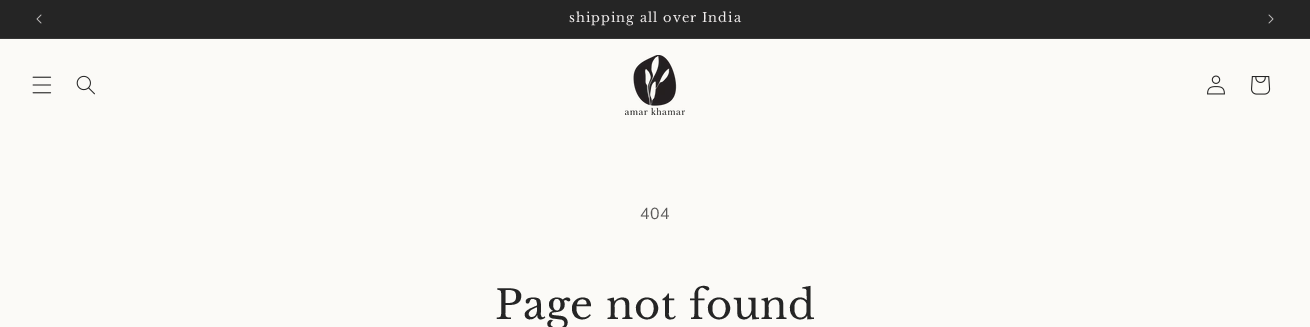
%!PS-Adobe-3.0
%%BoundingBox: 0 0 1310 327
%%LanguageLevel: 3
%%Pages: 1
%%EndComments
%%BeginProlog
/drawimage { 5 dict begin { /h /w /y /x /name } { exch def } forall
  gsave x y translate w h scale
  w h 8 [w 0 0 h 0 0] name (r) file false 3 colorimage grestore end } def
%%EndProlog
%%BeginSetup
<< /PageSize [1310 327] >> setpagedevice
%%EndSetup
%%Page: 1 1
0 327 translate 1 -1 scale
4 setmiterlimit
0.984 0.98 0.969 setrgbcolor
0 0 1310 327 rectfill
0.145 setgray
0 0 1310 38 rectfill
0.208 setgray
0 38 1310 1 rectfill
(images/1.raw) 36 14 6 10 drawimage
(images/2.raw) 1268 14 6 10 drawimage
(images/3.raw) 32 76 20 18 drawimage
(images/4.raw) 76 75 19 20 drawimage
(images/5.raw) 625 55 60 60 drawimage
(images/6.raw) 1207 75 18 20 drawimage
(images/7.raw) 1251 76 20 19 drawimage
/LibreBaskerville-Regular [13 0 0 -13 0 0] selectfont
0.937 0.925 0.925 setrgbcolor
569 22 moveto 1 0 (shipping all over India) ashow
/NunitoSans-Regular [16 0 0 -16 0 0] selectfont
0.357 0.353 0.353 setrgbcolor
640 219 moveto 0.6 0 (404) ashow
/LibreBaskerville-Regular [40 0 0 -40 0 0] selectfont
0.145 setgray
495 319 moveto 0.6 0 (Page not found) ashow
showpage
%%EOF
